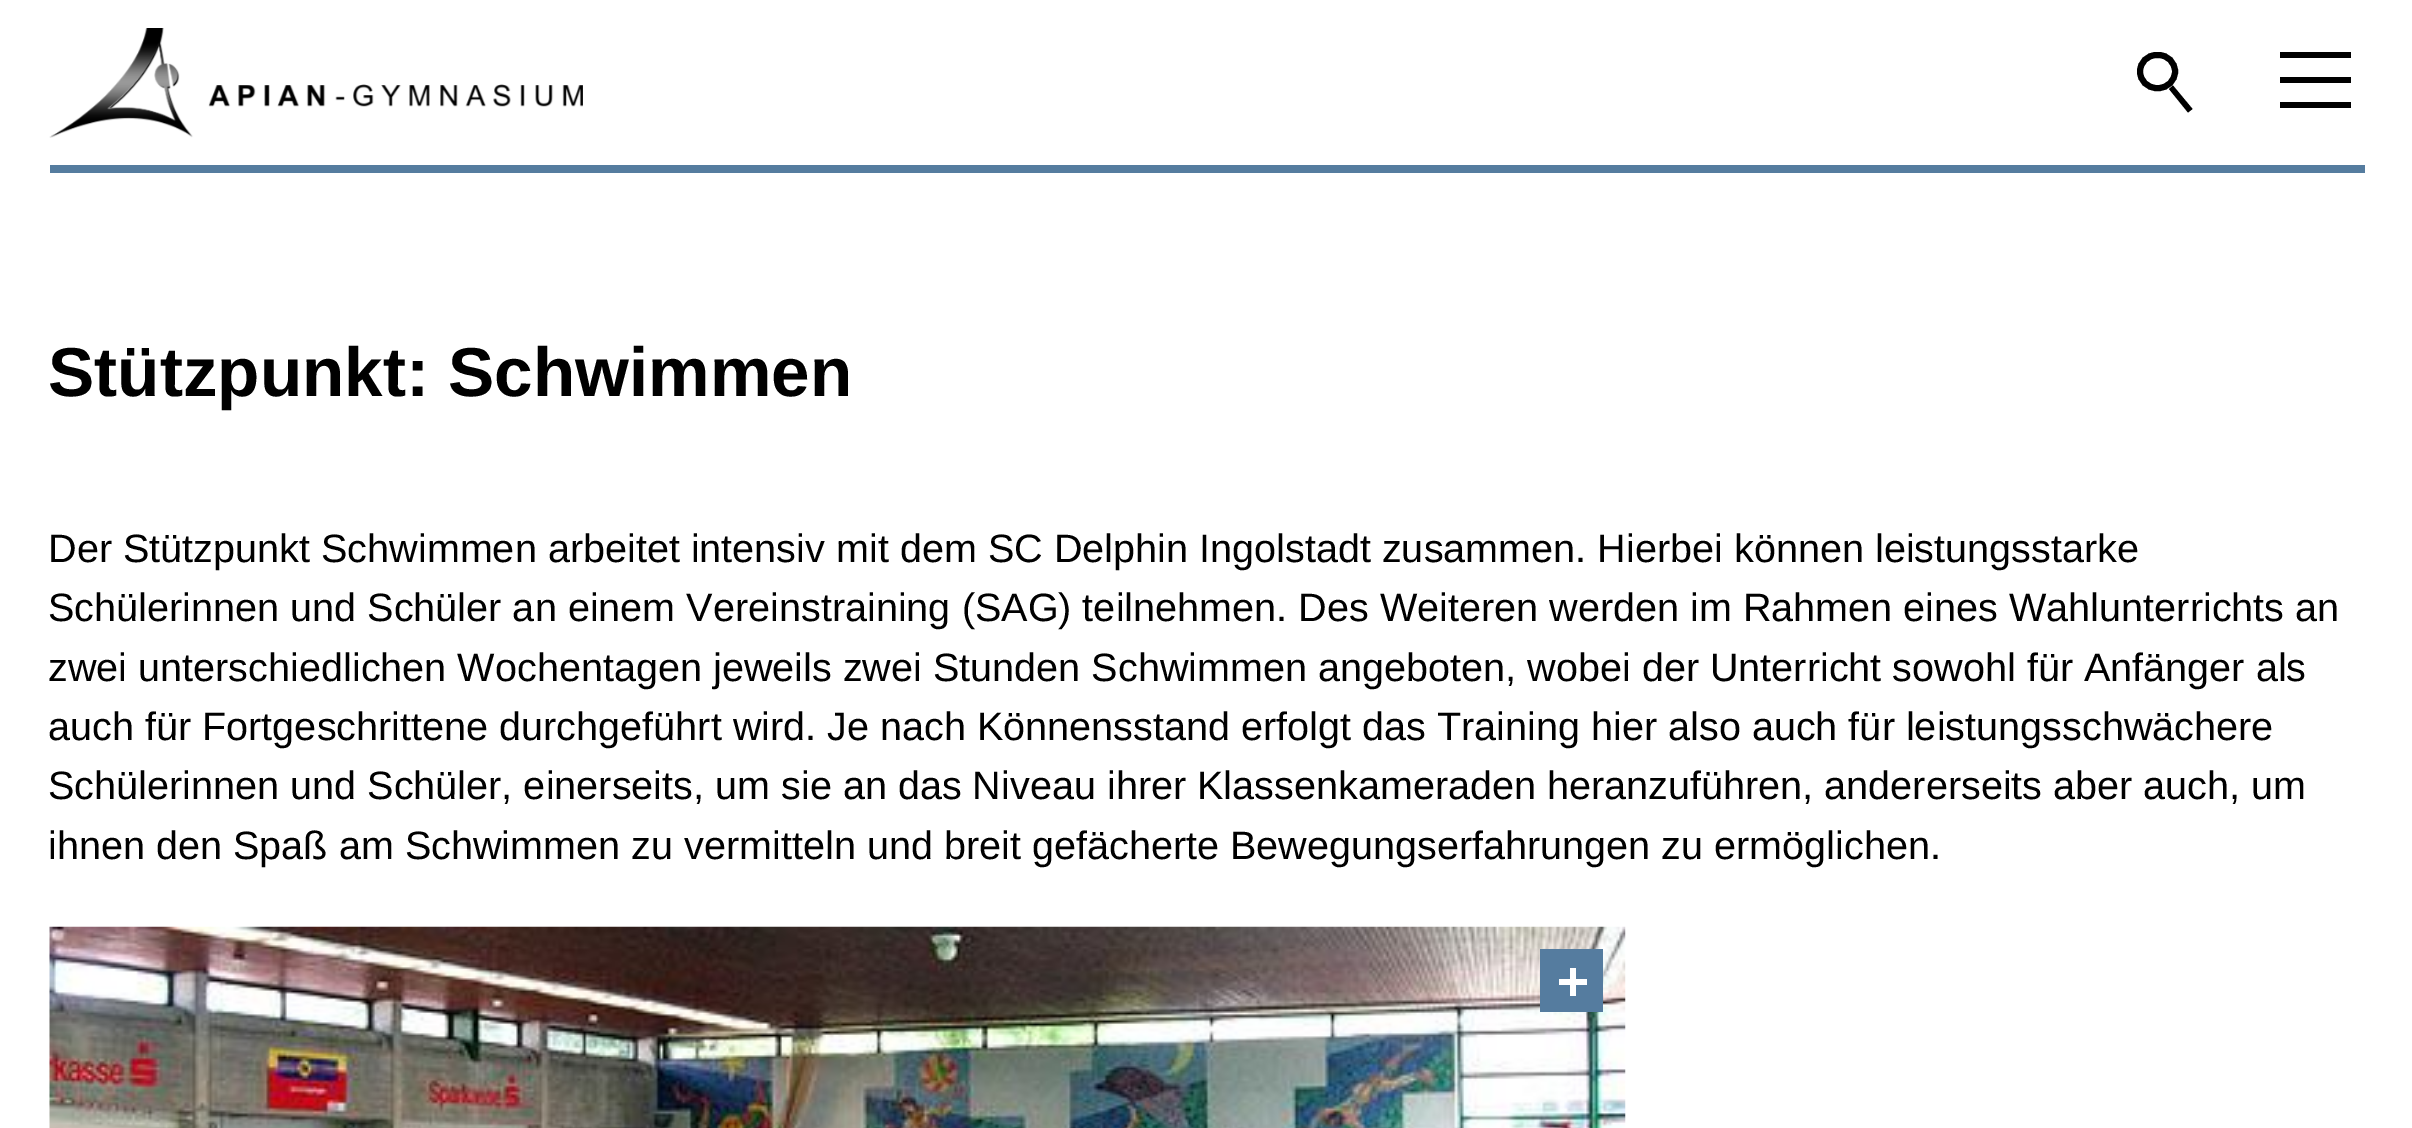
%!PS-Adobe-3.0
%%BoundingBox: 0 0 2412 1128
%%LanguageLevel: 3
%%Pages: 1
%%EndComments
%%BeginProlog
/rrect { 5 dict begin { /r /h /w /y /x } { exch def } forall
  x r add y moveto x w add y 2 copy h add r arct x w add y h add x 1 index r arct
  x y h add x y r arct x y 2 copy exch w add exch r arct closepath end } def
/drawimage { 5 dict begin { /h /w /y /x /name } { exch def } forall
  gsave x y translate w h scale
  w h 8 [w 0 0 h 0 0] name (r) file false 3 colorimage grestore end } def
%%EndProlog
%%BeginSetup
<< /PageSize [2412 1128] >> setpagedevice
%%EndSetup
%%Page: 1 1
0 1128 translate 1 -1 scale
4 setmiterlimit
1 setgray
0 0 2412 1128 rectfill
0.333 0.486 0.624 setrgbcolor
50 165 2315 8 rectfill
(images/1.raw) 49 28 534 110 drawimage
0 setgray
6 setlinewidth
2140 55 35 33 16.5 rrect stroke
newpath 2173 85.5 moveto 2192.5 109 lineto 2188 112.5 lineto 2169 89 lineto closepath fill
2280 52 71 6 rectfill
2280 77 71 6 rectfill
2280 102 71 6 rectfill
(images/2.raw) 49 926 1577 202 drawimage
0.333 0.486 0.624 setrgbcolor
1540 949 63 63 rectfill
1 setgray
1559 979 28 6 rectfill
1570 968 6 28 rectfill
/LiberationSans-Bold [69.25 0 0 -69.25 0 0] selectfont
0 setgray
48 396 moveto (Stützpunkt: Schwimmen) show
/LiberationSans-Regular [39.6 0 0 -39.6 0 0] selectfont
48 562 moveto (Der Stützpunkt Schwimmen arbeitet intensiv mit dem SC Delphin Ingolstadt zusammen. Hierbei können leistungsstarke) show
48 621 moveto (Schülerinnen und Schüler an einem Vereinstraining \(SAG\) teilnehmen. Des Weiteren werden im Rahmen eines Wahlunterrichts an) show
48 681 moveto (zwei unterschiedlichen Wochentagen jeweils zwei Stunden Schwimmen angeboten, wobei der Unterricht sowohl für Anfänger als) show
48 740 moveto (auch für Fortgeschrittene durchgeführt wird. Je nach Könnensstand erfolgt das Training hier also auch für leistungsschwächere) show
48 799 moveto (Schülerinnen und Schüler, einerseits, um sie an das Niveau ihrer Klassenkameraden heranzuführen, andererseits aber auch, um) show
48 859 moveto (ihnen den Spaß am Schwimmen zu vermitteln und breit gefächerte Bewegungserfahrungen zu ermöglichen.) show
showpage
%%EOF
